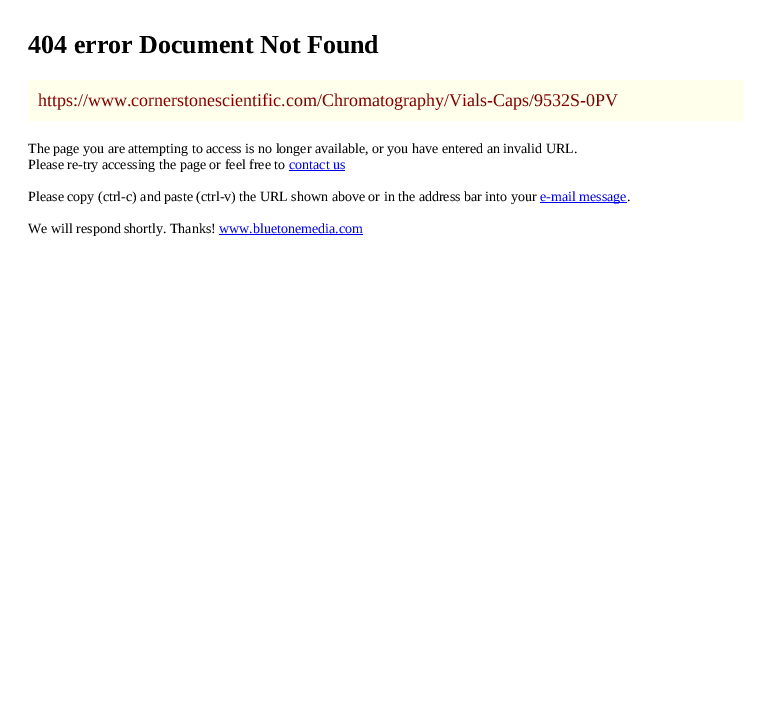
%!PS-Adobe-3.0
%%BoundingBox: 0 0 771 719
%%LanguageLevel: 3
%%Pages: 1
%%EndComments
%%BeginProlog
%%EndProlog
%%BeginSetup
<< /PageSize [771 719] >> setpagedevice
%%EndSetup
%%Page: 1 1
0 719 translate 1 -1 scale
4 setmiterlimit
1 setgray
0 0 771 719 rectfill
1 1 0.925 setrgbcolor
28 80 715 41 rectfill
0 0 0.933 setrgbcolor
289 170 56 1 rectfill
540 202 87 1 rectfill
219 234 144 1 rectfill
/LiberationSerif-Bold [26 0 0 -26 0 0] selectfont
0 setgray
28 53 moveto (404 error Document Not Found) show
/LiberationSerif-Regular [18 0 0 -18 0 0] selectfont
0.502 0 0 setrgbcolor
38 106 moveto (https://www.cornerstonescientific.com/Chromatography/Vials-Caps/9532S-0PV) show
/LiberationSerif-Regular [14 0 0 -14 0 0] selectfont
0 setgray
28 153 moveto (The page you are attempting to access is no longer available, or you have entered an invalid URL.) show
28 169 moveto (Please re-try accessing the page or feel free to) show
0 0 0.933 setrgbcolor
289 169 moveto (contact us) show
0 setgray
28 201 moveto (Please copy \(ctrl-c\) and paste \(ctrl-v\) the URL shown above or in the address bar into your) show
0 0 0.933 setrgbcolor
540 201 moveto (e-mail message) show
0 setgray
627 201 moveto (.) show
28 233 moveto (We will respond shortly. Thanks!) show
0 0 0.933 setrgbcolor
219 233 moveto (www.bluetonemedia.com) show
showpage
%%EOF
